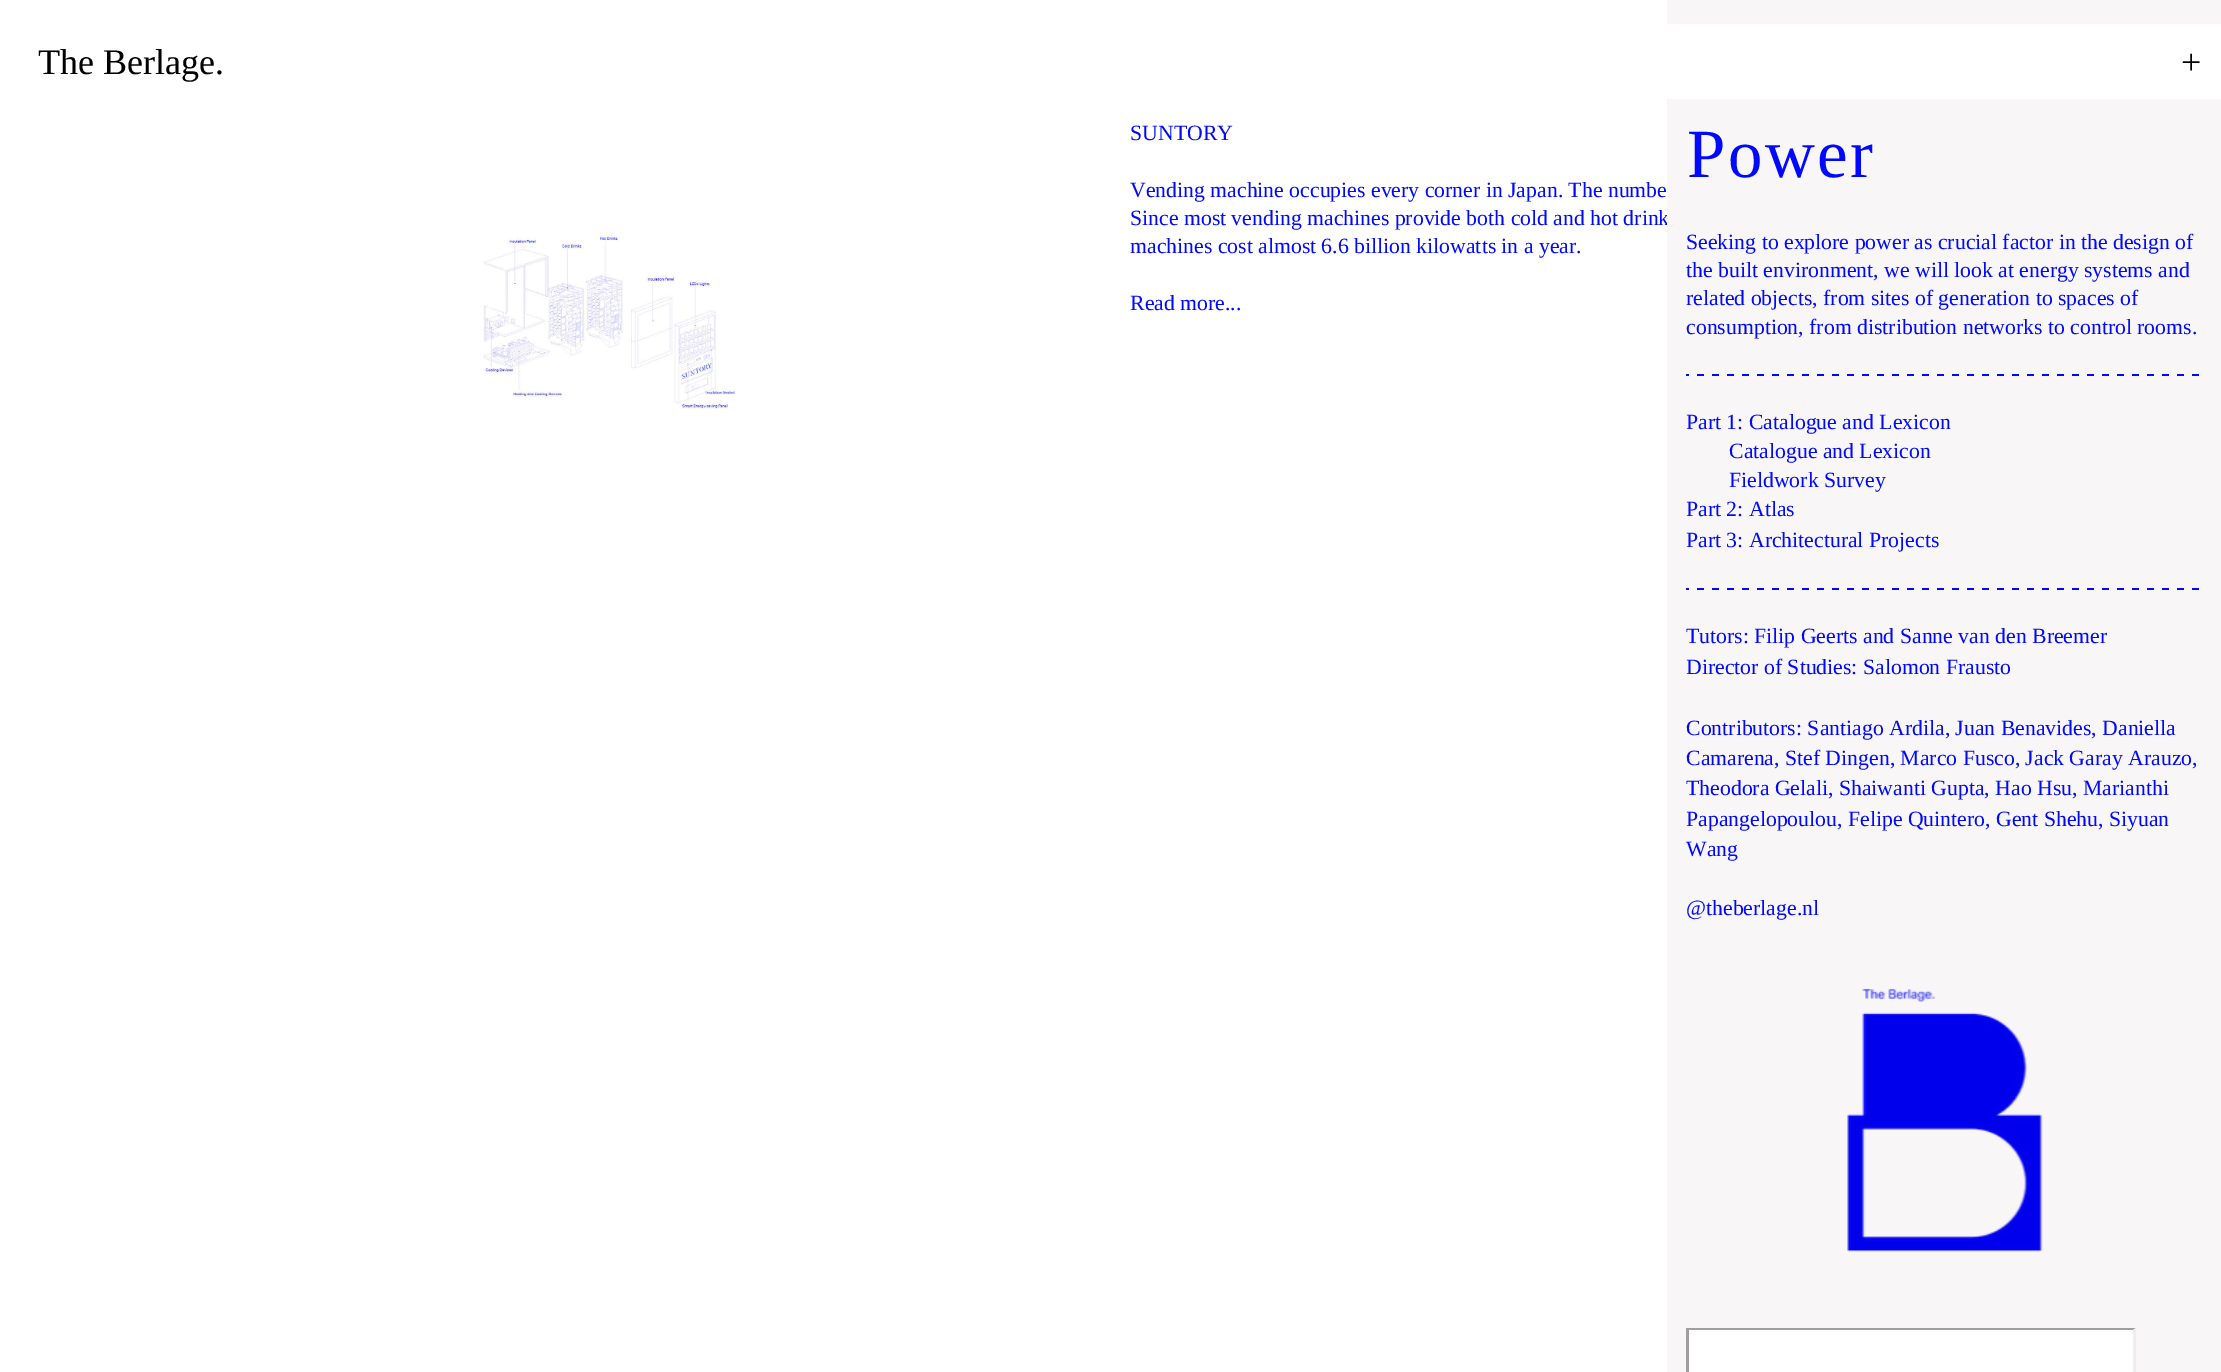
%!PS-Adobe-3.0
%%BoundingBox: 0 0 2221 1372
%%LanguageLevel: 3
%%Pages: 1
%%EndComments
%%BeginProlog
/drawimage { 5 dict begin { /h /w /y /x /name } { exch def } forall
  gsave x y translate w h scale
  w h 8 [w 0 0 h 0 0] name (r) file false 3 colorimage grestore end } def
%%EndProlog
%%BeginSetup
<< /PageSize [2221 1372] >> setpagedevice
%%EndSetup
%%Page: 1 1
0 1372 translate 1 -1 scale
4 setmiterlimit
1 setgray
0 0 2221 1372 rectfill
(images/3.raw) 483 234 254 176 drawimage
/LiberationSerif-Regular [36 0 0 -36 0 0] selectfont
0 setgray
38 74 moveto (The Berlage.) show
/LiberationSerif-Regular [21.75 0 0 -21.75 0 0] selectfont
0 0.031 1 setrgbcolor
1130 140 moveto (SUNTORY) show
1130 197 moveto (Vending machine occupies every corner in Japan. The numbe) show
1130 225 moveto (Since most vending machines provide both cold and hot drink) show
0.973 0.965 0.965 setrgbcolor
1667 0 554 1372 rectfill
1 setgray
1667 24 554 75 rectfill
/LiberationSerif-Regular [36 0 0 -36 0 0] selectfont
0 setgray
2181 74 moveto (+) show
(images/2.raw) 1847 988 196 264 drawimage
/LiberationSerif-Regular [21.75 0 0 -21.75 0 0] selectfont
0 0.031 1 setrgbcolor
1686 915 moveto (@theberlage.nl) show
1686 547 moveto (Part 3: Architectural Projects) show
1686 516 moveto (Part 2: Atlas) show
1729 487 moveto (Fieldwork Survey) show
1729 458 moveto (Catalogue and Lexicon) show
1686 429 moveto (Part 1: Catalogue and Lexicon) show
/LiberationSerif-Regular [69 0 0 -69 0 0] selectfont
1687 177 moveto 2.5 0 (Power) ashow
1 setgray
1686 1328 450 44 rectfill
0.624 setgray
newpath 1686 1328 moveto 2136 1328 lineto 2133 1330 lineto 1689 1330 lineto closepath fill
newpath 1686 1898 moveto 1686 1328 lineto 1689 1330 lineto 1689 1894 lineto closepath fill
0.933 setgray
newpath 2136 1328 moveto 2136 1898 lineto 2133 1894 lineto 2133 1330 lineto closepath fill
(images/1.raw) 1686 588 513 2 drawimage
(images/1.raw) 1686 374 513 2 drawimage
/LiberationSerif-Regular [21.75 0 0 -21.75 0 0] selectfont
0 0.031 1 setrgbcolor
1686 856 moveto (Wang) show
1686 826 moveto (Papangelopoulou, Felipe Quintero, Gent Shehu, Siyuan) show
1686 795 moveto (Theodora Gelali, Shaiwanti Gupta, Hao Hsu, Marianthi) show
1686 765 moveto (Camarena, Stef Dingen, Marco Fusco, Jack Garay Arauzo,) show
1686 735 moveto (Contributors: Santiago Ardila, Juan Benavides, Daniella) show
1686 674 moveto (Director of Studies: Salomon Frausto) show
1686 643 moveto (Tutors: Filip Geerts and Sanne van den Breemer) show
1686 334 moveto (consumption, from distribution networks to control rooms.) show
1686 305 moveto (related objects, from sites of generation to spaces of) show
1686 277 moveto (the built environment, we will look at energy systems and) show
1686 249 moveto (Seeking to explore power as crucial factor in the design of) show
1130 253 moveto (machines cost almost 6.6 billion kilowatts in a year.) show
1130 310 moveto (Read more...) show
showpage
%%EOF
